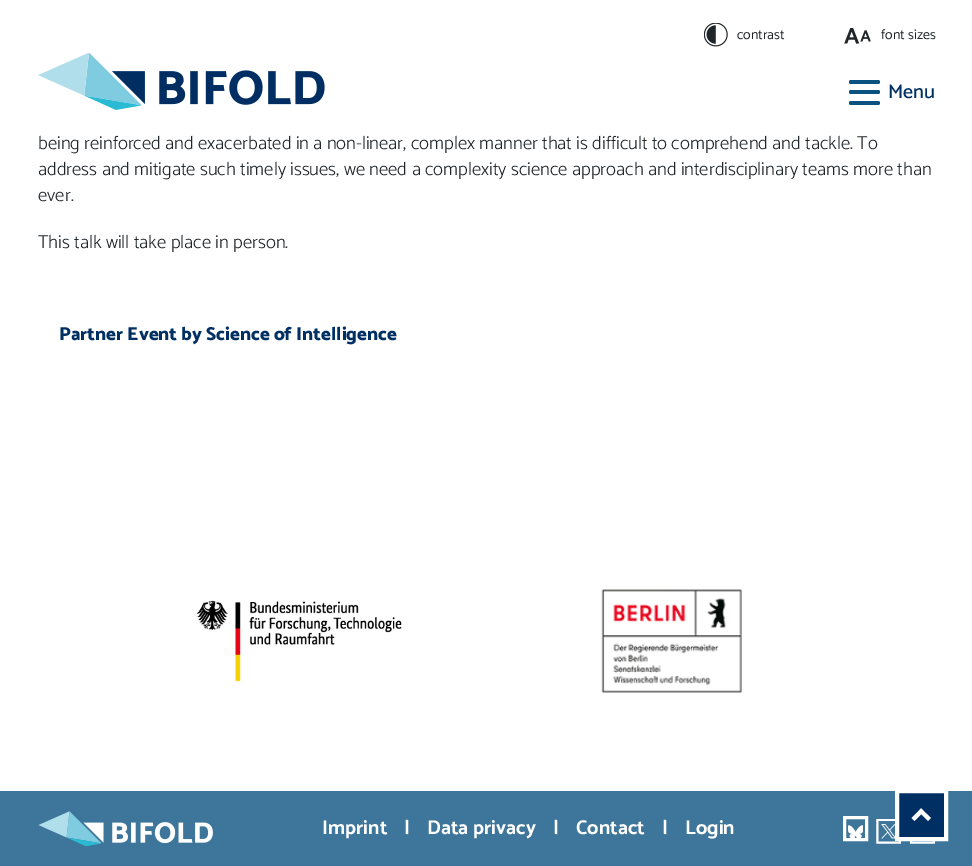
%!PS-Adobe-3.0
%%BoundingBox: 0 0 972 866
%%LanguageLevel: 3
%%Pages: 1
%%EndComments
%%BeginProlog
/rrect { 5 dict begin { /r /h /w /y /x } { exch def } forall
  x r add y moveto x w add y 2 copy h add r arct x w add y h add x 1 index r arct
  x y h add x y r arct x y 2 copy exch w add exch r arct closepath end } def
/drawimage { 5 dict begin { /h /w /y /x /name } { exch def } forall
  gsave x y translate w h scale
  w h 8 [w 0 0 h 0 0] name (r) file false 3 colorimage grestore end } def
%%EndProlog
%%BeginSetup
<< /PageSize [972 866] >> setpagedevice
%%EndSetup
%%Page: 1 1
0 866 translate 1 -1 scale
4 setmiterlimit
1 setgray
0 0 972 866 rectfill
(images/1.raw) 704 23 24 24 drawimage
(images/2.raw) 844 28 27 16 drawimage
(images/3.raw) 38 53 287 57 drawimage
0.043 0.322 0.502 setrgbcolor
849 80 31 4 2 rrect fill
849 90 31 4 2 rrect fill
849 101 31 4 2 rrect fill
(images/4.raw) 196 600 206 82 drawimage
(images/5.raw) 601 589 142 104 drawimage
0.243 0.463 0.608 setrgbcolor
0 791 972 75 rectfill
(images/6.raw) 38 811 175 35 drawimage
1 setgray
3 setlinewidth
844.5 817.5 22 22 rectstroke
(images/7.raw) 848 825 15 13 drawimage
(images/8.raw) 876 819 25 25 drawimage
(images/9.raw) 910 841 25 3 drawimage
0 0.184 0.388 setrgbcolor
newpath 897 791 moveto 946 791 lineto 946 839 lineto 897 839 lineto closepath gsave fill grestore
1 setgray
4 setlinewidth
stroke
newpath 921 808.5 moveto 931 818 lineto 928 821 lineto 918.5 811.5 lineto closepath fill
newpath 921 808.5 moveto 924 811.5 lineto 914.5 821 lineto 911.5 818 lineto closepath fill
/Catamaran-Regular [14 0 0 -14 0 0] selectfont
0.125 0.145 0.161 setrgbcolor
737 39 moveto (contrast) show
881 39 moveto (font sizes) show
/Catamaran-Medium [20 0 0 -20 0 0] selectfont
0 0.184 0.388 setrgbcolor
888 98 moveto (Menu) show
/Catamaran-Light [18.75 0 0 -18.75 0 0] selectfont
0.125 0.145 0.161 setrgbcolor
38 149 moveto (being reinforced and exacerbated in a non-linear, complex manner that is difficult to comprehend and tackle. To) show
38 175 moveto (address and mitigate such timely issues, we need a complexity science approach and interdisciplinary teams more than) show
38 201 moveto (ever.) show
38 248 moveto (This talk will take place in person.) show
/Catamaran-ExtraBold [18.75 0 0 -18.75 0 0] selectfont
0 0.184 0.388 setrgbcolor
59 340 moveto (Partner Event by Science of Intelligence) show
/Catamaran-Bold [20 0 0 -20 0 0] selectfont
1 setgray
322 834 moveto (Imprint) show
404 834 moveto (|) show
427 834 moveto (Data privacy) show
553 834 moveto (|) show
576 834 moveto (Contact) show
662 834 moveto (|) show
685 834 moveto (Login) show
showpage
%%EOF
